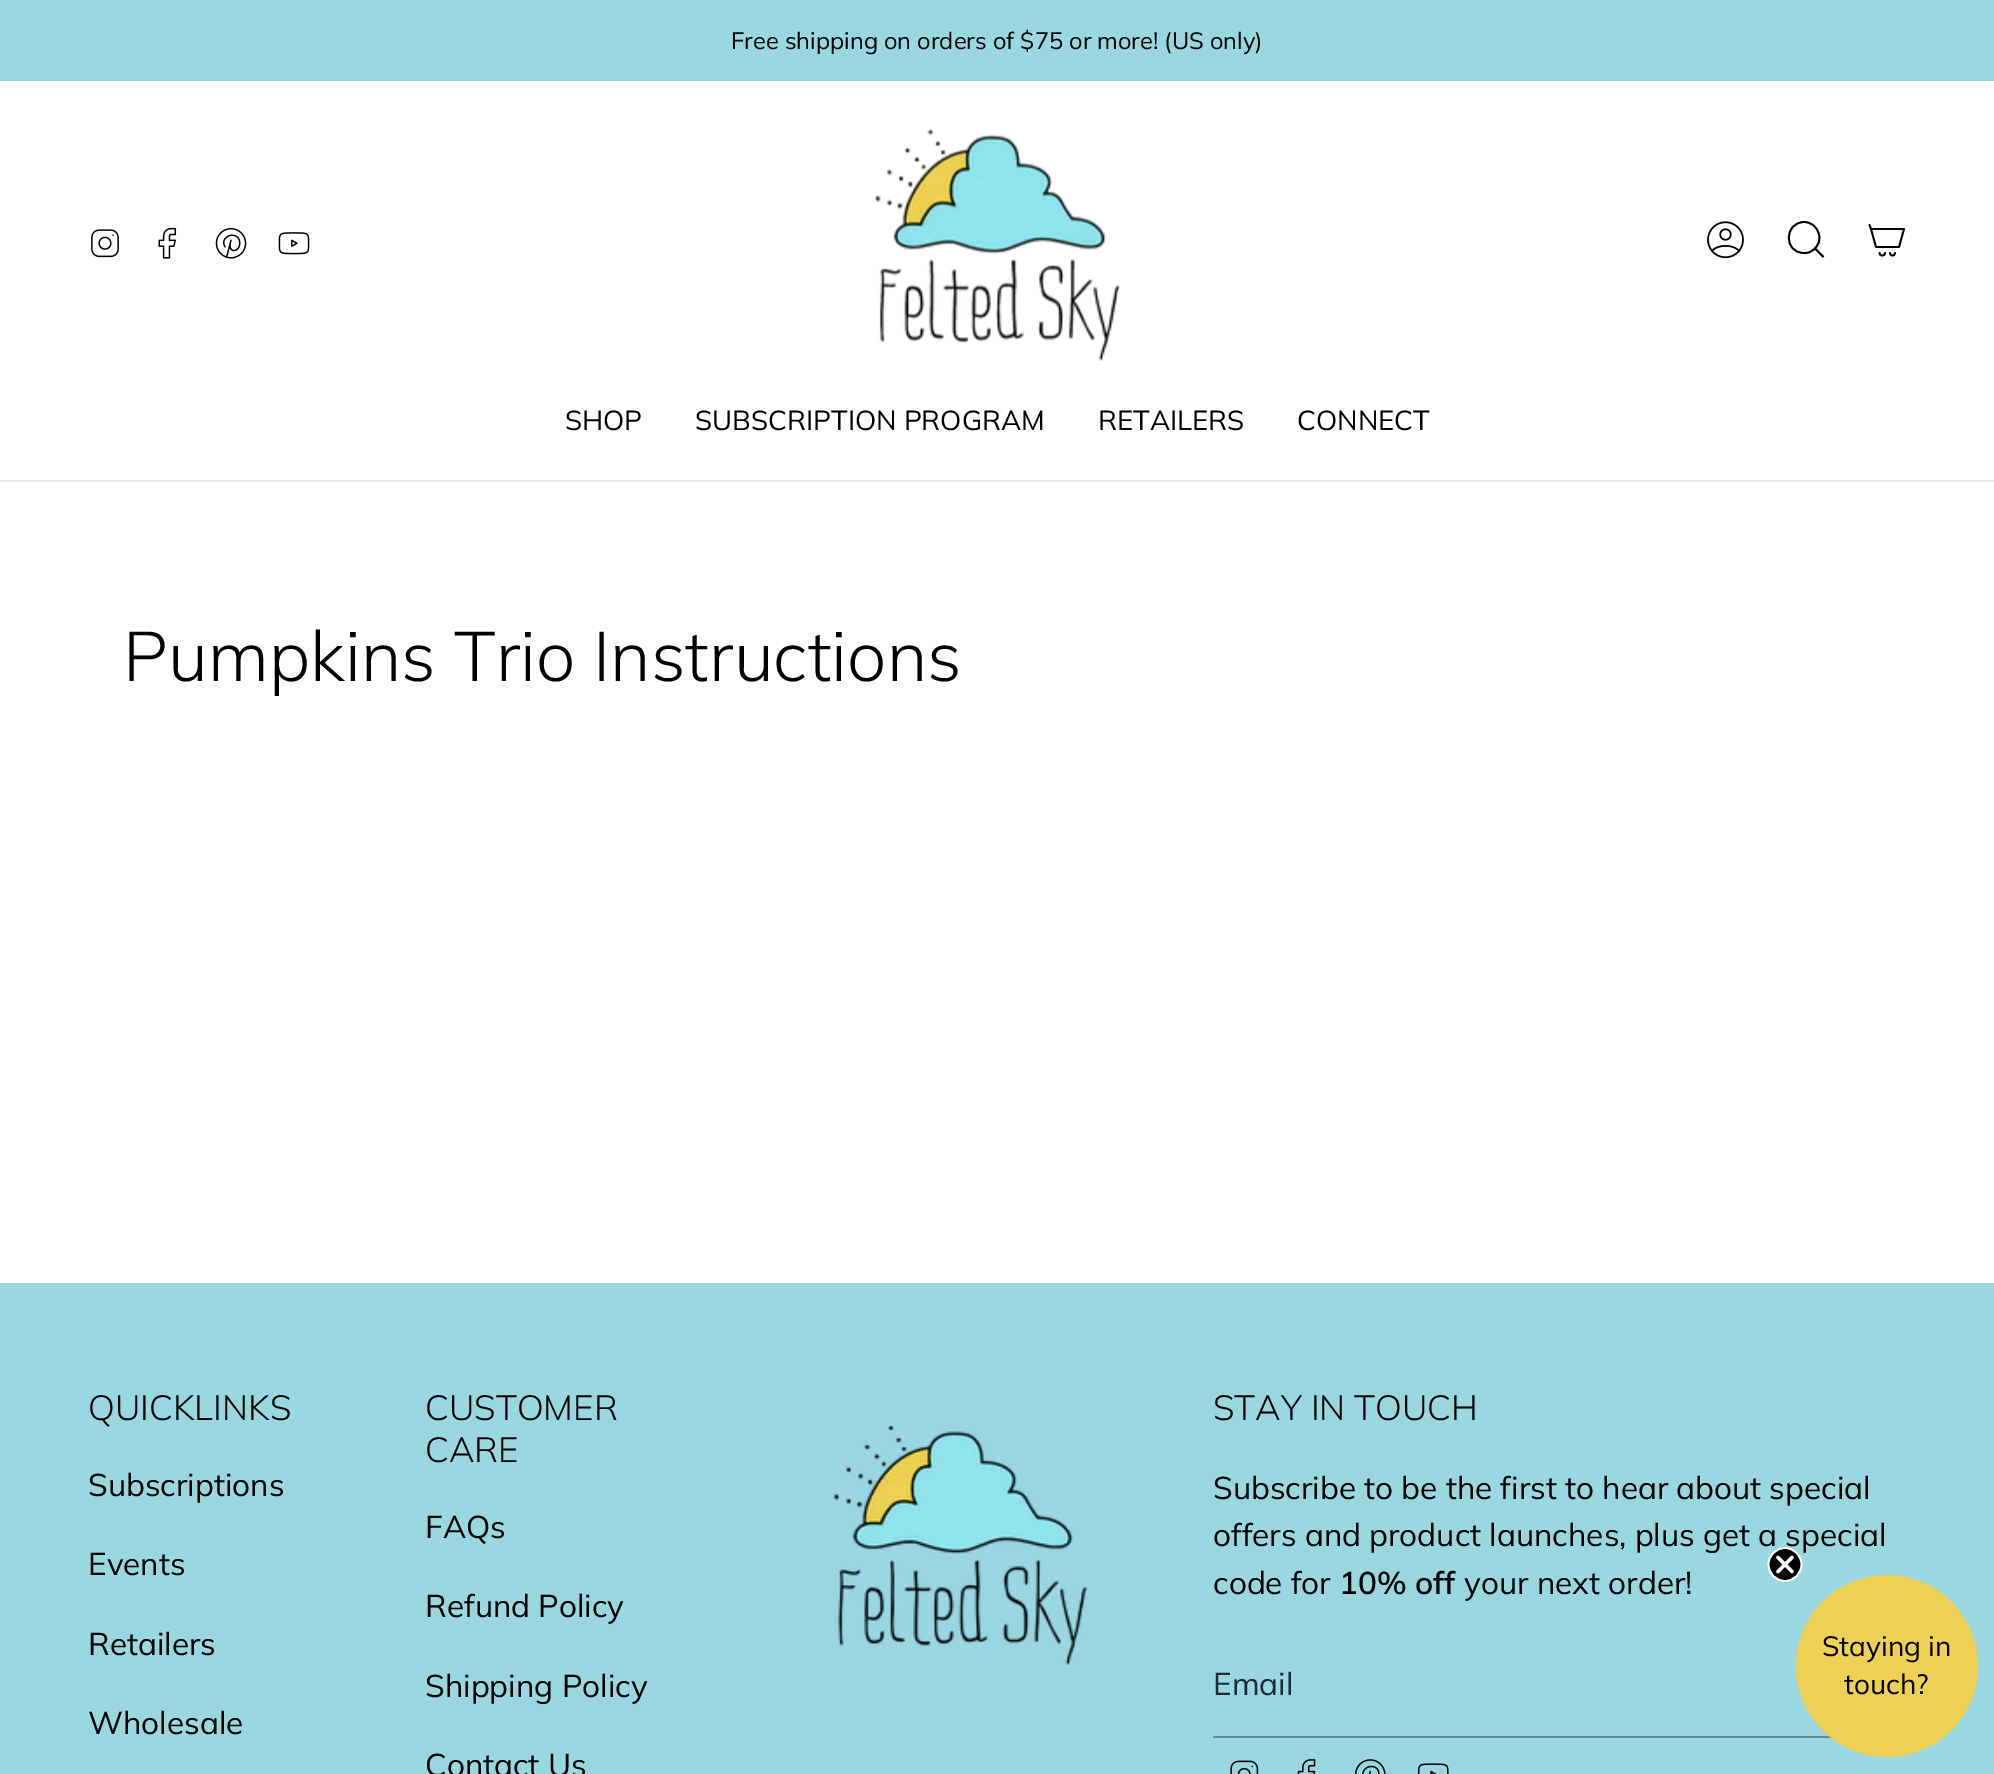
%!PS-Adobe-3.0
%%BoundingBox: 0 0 1994 1774
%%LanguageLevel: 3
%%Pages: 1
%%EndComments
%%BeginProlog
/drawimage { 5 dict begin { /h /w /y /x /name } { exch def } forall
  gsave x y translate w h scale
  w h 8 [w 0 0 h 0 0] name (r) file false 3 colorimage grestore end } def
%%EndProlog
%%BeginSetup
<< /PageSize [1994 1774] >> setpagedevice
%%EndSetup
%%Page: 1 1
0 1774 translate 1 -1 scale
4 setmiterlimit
1 setgray
0 0 1994 1774 rectfill
0.6 0.843 0.882 setrgbcolor
0 0 1994 81 rectfill
(images/1.raw) 91 229 28 29 drawimage
(images/2.raw) 158 227 19 32 drawimage
(images/3.raw) 215 227 32 32 drawimage
(images/4.raw) 278 232 32 23 drawimage
(images/5.raw) 875 129 245 232 drawimage
(images/6.raw) 1707 221 37 38 drawimage
0 setgray
1.8 setlinewidth
newpath 1804 222 moveto 1818.5 222 1825.5 241.5 1813 250 curveto 1810.5 252.5 1807 253.5 1803.5 253 curveto 1783.5 252.5 1784 222.5 1804 222 curveto closepath 1815 248.5 moveto 1823.5 257 lineto stroke
1 setlinecap
1 setlinejoin
newpath 1871 229 moveto 1904 229 lineto 1899 247 lineto 1876 247 lineto closepath 1871 229 moveto 1869.5 225 lineto 1885 253 moveto 1885 256.5 1879.5 256.5 1879.5 253 curveto 1895 253 moveto 1895 256.5 1890 256.5 1890 253 curveto stroke
0.91 0.91 0.906 setrgbcolor
0 480 1994 2 rectfill
0.6 0.843 0.882 setrgbcolor
0 1283 1994 491 rectfill
(images/7.raw) 833 1425 255 240 drawimage
0.388 0.549 0.573 setrgbcolor
1213 1736 619 2 rectfill
(images/8.raw) 1230 1760 29 14 drawimage
(images/9.raw) 1297 1759 19 15 drawimage
(images/10.raw) 1355 1759 31 15 drawimage
(images/11.raw) 1417 1763 32 11 drawimage
0.925 0.82 0.329 setrgbcolor
newpath 1887 1666 91 0 360 arc closepath fill
0 setgray
newpath 1785 1564.5 16.5 0 360 arc closepath gsave fill grestore
1 setgray
0 setlinecap
0 setlinejoin
stroke
3.5 setlinewidth
1 setlinecap
1 setlinejoin
newpath 1778 1557.5 moveto 1792 1571.5 lineto 1778 1571.5 moveto 1792 1557.5 lineto closepath stroke
/Muli-Regular [23.6 0 0 -23.6 0 0] selectfont
0 setgray
731 49 moveto (Free shipping on orders of $75 or more! \(US only\)) show
/Muli-Regular [27.5 0 0 -27.5 0 0] selectfont
565 430 moveto (SHOP) show
695 430 moveto (SUBSCRIPTION PROGRAM) show
1098 430 moveto (RETAILERS) show
1297 430 moveto (CONNECT) show
/Muli-Light [70 0 0 -70 0 0] selectfont
123 681 moveto (Pumpkins Trio Instructions) show
/Muli-Light [35 0 0 -35 0 0] selectfont
88 1420 moveto (QUICKLINKS) show
/Muli-Regular [31.5 0 0 -31.5 0 0] selectfont
88 1496 moveto (Subscriptions) show
88 1575 moveto (Events) show
88 1655 moveto (Retailers) show
88 1734 moveto (Wholesale) show
/Muli-Light [35 0 0 -35 0 0] selectfont
425 1420 moveto (CUSTOMER) show
425 1462 moveto (CARE) show
/Muli-Regular [31.5 0 0 -31.5 0 0] selectfont
425 1538 moveto (FAQs) show
425 1617 moveto (Refund Policy) show
425 1697 moveto (Shipping Policy) show
425 1776 moveto (Contact Us) show
/Muli-Light [35 0 0 -35 0 0] selectfont
1213 1420 moveto (STAY IN TOUCH) show
/Muli-Regular [31.5 0 0 -31.5 0 0] selectfont
1213 1499 moveto (Subscribe to be the first to hear about special) show
1213 1546 moveto (offers and product launches, plus get a special) show
1213 1594 moveto (code for) show
/Muli-SemiBold [31.5 0 0 -31.5 0 0] selectfont
1339 1594 moveto (10% off) show
/Muli-Regular [31.5 0 0 -31.5 0 0] selectfont
1464 1594 moveto (your next order!) show
0.122 0.169 0.176 setrgbcolor
1213 1695 moveto (Email) show
/Mulish-Regular [28 0 0 -28 0 0] selectfont
0 setgray
1822 1656 moveto (Staying in) show
1844 1694 moveto (touch?) show
showpage
%%EOF
